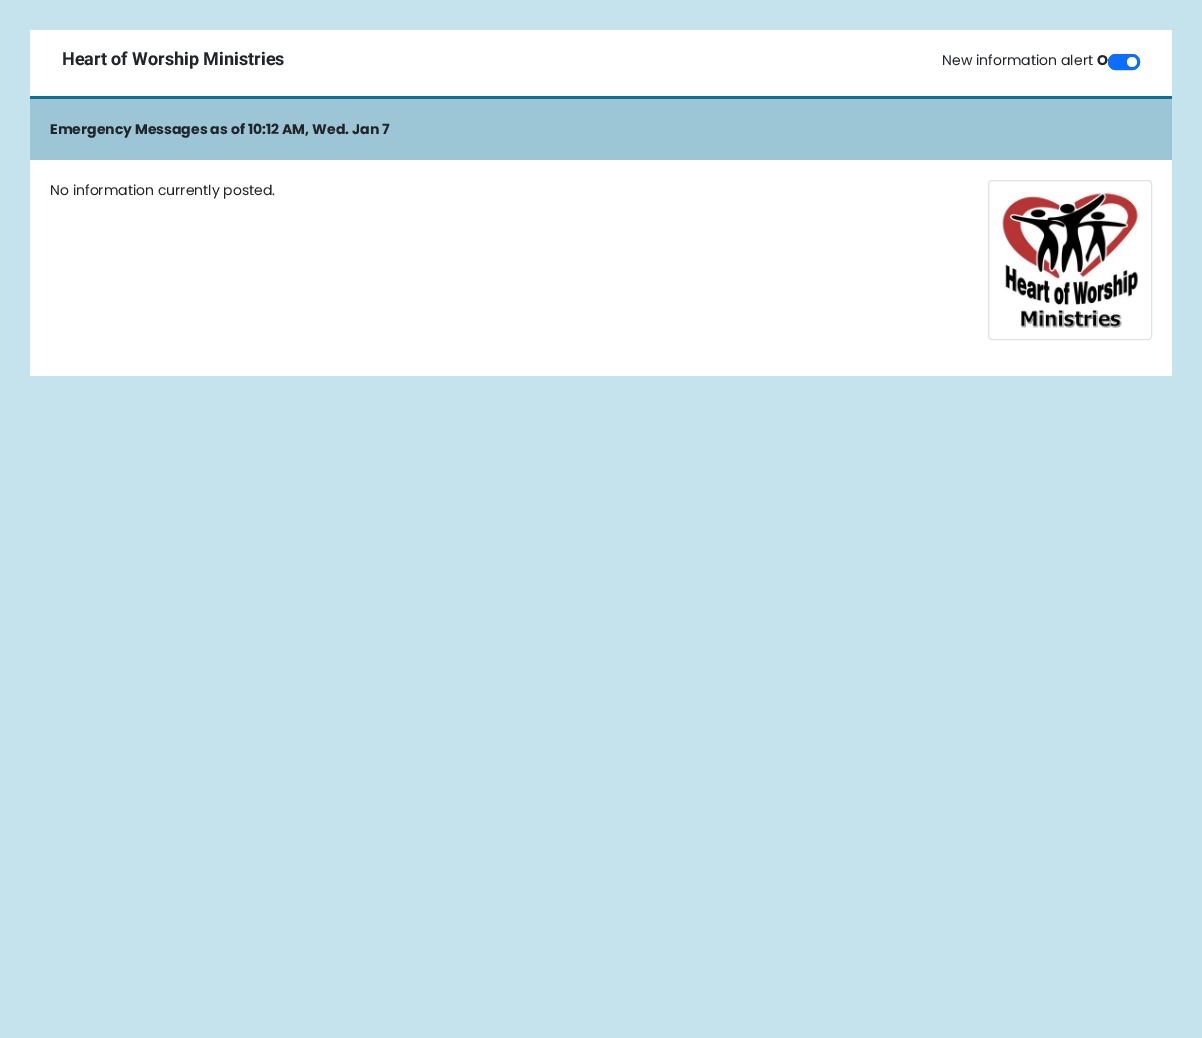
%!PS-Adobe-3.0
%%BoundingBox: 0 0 1202 1038
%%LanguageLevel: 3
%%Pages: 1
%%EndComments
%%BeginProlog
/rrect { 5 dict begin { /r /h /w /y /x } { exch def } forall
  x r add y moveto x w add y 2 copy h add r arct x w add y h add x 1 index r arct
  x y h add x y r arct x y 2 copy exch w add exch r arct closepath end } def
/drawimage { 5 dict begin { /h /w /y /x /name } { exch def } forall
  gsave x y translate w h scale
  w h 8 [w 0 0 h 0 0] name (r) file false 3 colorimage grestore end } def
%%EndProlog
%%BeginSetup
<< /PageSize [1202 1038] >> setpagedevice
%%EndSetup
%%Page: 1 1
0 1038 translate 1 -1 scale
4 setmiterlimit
0.773 0.89 0.929 setrgbcolor
0 0 1202 1038 rectfill
1 setgray
30 30 1142 346 rectfill
0.035 0.451 0.592 setrgbcolor
30 96 1142 3 rectfill
0.051 0.431 0.992 setrgbcolor
1108 54 32 16 8 rrect fill
1 setgray
newpath 1132 62 5 0 360 arc closepath fill
0.051 0.431 0.992 setrgbcolor
1108.5 54.5 31 15 7.5 rrect stroke
0.612 0.776 0.835 setrgbcolor
30 99 1142 61 rectfill
0.871 0.886 0.902 setrgbcolor
988.5 180.5 163 159 3.5 rrect stroke
(images/1.raw) 1000 192 144 136 drawimage
/Roboto-Bold [18 0 0 -18 0 0] selectfont
0.129 0.145 0.161 setrgbcolor
62 65 moveto (Heart of Worship Ministries) show
/Poppins-Regular [14 0 0 -14 0 0] selectfont
942 65 moveto (New information alert) show
/Poppins-Bold [14 0 0 -14 0 0] selectfont
1097 65 moveto (O) show
50 134 moveto (Emergency Messages as of 10:12 AM, Wed. Jan 7) show
/Poppins-Regular [14 0 0 -14 0 0] selectfont
50 195 moveto (No information currently posted.) show
showpage
%%EOF
